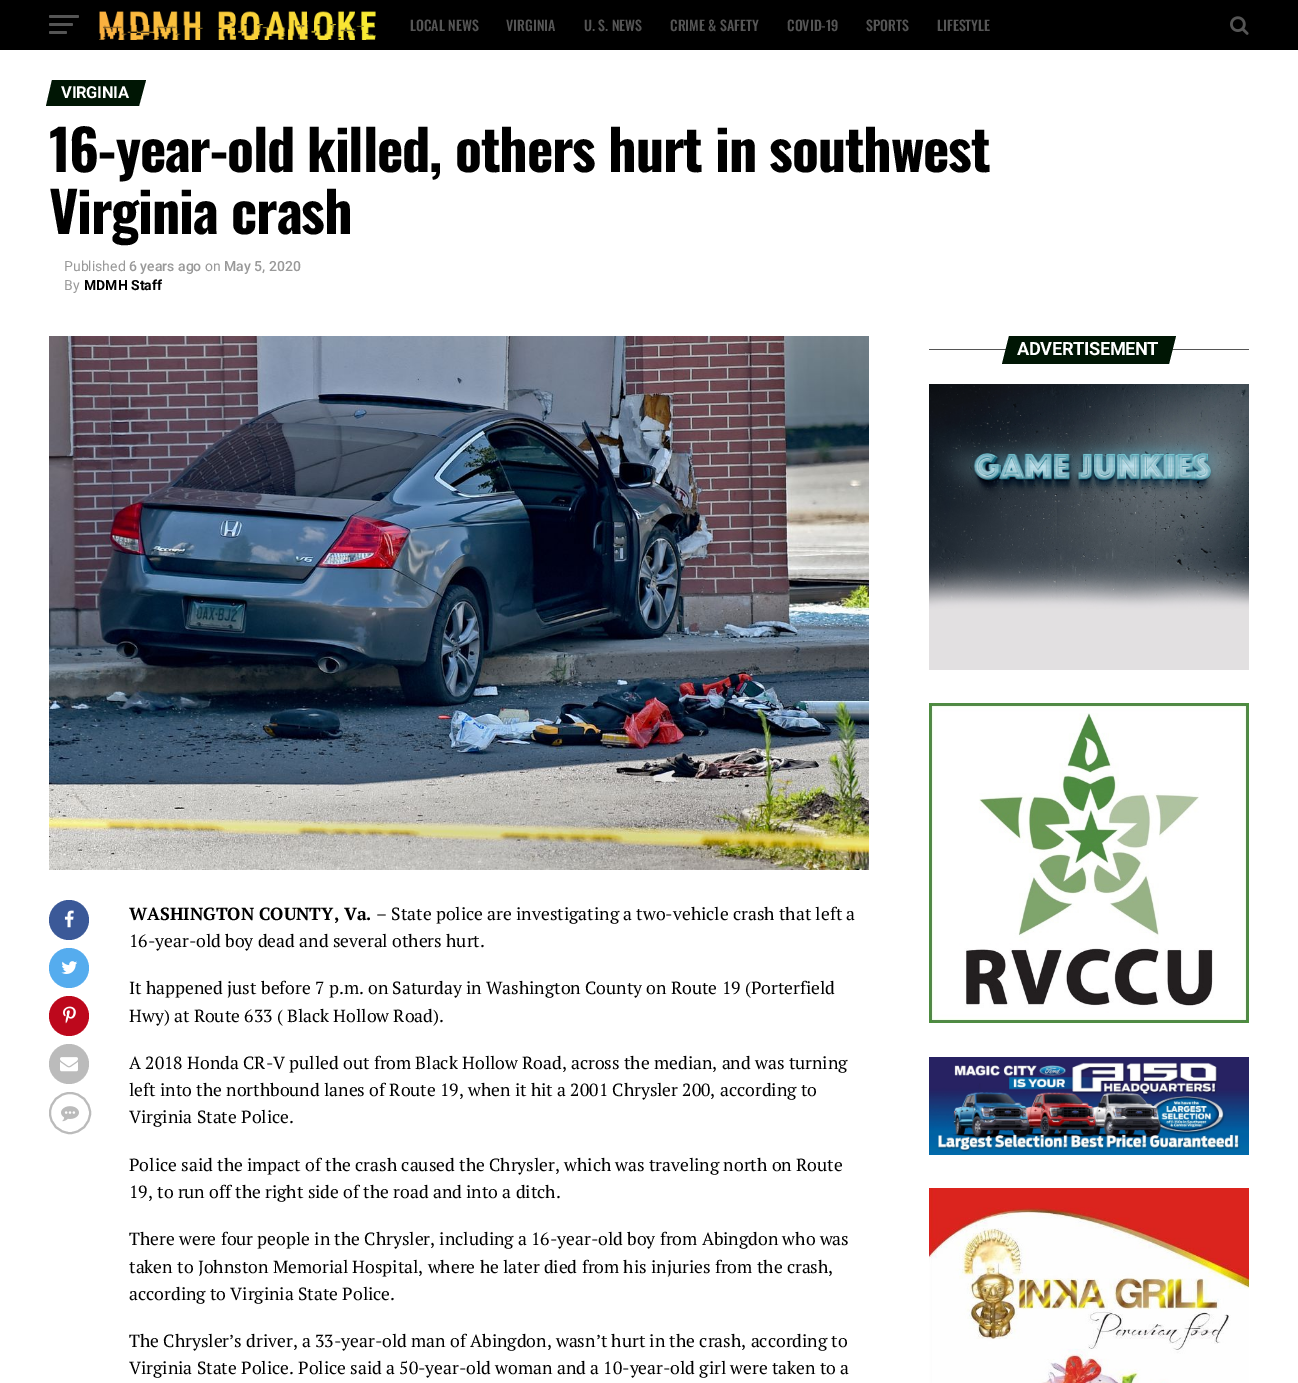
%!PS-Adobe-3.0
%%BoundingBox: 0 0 1298 1383
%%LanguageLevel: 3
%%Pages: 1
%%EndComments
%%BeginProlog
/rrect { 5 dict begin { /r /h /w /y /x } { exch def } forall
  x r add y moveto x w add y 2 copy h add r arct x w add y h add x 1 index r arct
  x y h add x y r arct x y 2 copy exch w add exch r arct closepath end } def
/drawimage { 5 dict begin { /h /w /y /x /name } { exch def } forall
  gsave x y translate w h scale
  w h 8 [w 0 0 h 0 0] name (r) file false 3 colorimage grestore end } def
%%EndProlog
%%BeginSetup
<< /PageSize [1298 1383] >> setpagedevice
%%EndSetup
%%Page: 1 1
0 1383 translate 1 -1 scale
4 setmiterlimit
1 setgray
0 0 1298 1383 rectfill
0 setgray
0 0 1298 50 rectfill
0.333 setgray
49 15 30 3 1.5 rrect fill
49 23 24 3 1.5 rrect fill
49 31 18 3 1.5 rrect fill
(images/1.raw) 99 11 277 29 drawimage
(images/2.raw) 1230 16 19 19 drawimage
0 0.086 0.016 setrgbcolor
newpath 52 80 moveto 146 80 lineto 139 106 lineto 46 106 lineto closepath fill
0.333 setgray
929 349 320 1 rectfill
0 0.086 0.016 setrgbcolor
newpath 1009 336 moveto 1176 336 lineto 1169 364 lineto 1002 364 lineto closepath fill
(images/3.raw) 929 384 320 286 drawimage
(images/4.raw) 929 703 320 320 drawimage
(images/5.raw) 929 1057 320 98 drawimage
(images/6.raw) 929 1188 320 195 drawimage
(images/7.raw) 49 336 820 534 drawimage
0.231 0.349 0.596 setrgbcolor
newpath 69 920 20 0 360 arc closepath fill
(images/8.raw) 64 910 10 18 drawimage
0.333 0.675 0.933 setrgbcolor
newpath 69 968 20 0 360 arc closepath fill
(images/9.raw) 61 961 17 13 drawimage
0.741 0.031 0.11 setrgbcolor
newpath 69 1016 20 0 360 arc closepath fill
(images/10.raw) 63 1006 13 18 drawimage
0.733 setgray
newpath 69 1064 20 0 360 arc closepath fill
(images/11.raw) 60 1057 18 15 drawimage
2 setlinewidth
newpath 70 1113 20 0 360 arc closepath stroke
(images/12.raw) 61 1106 18 16 drawimage
/Oswald-Medium [14 0 0 -14 0 0] selectfont
0.333 setgray
410 31 moveto (LOCAL NEWS) show
506 31 moveto (VIRGINIA) show
584 31 moveto (U. S. NEWS) show
670 31 moveto (CRIME & SAFETY) show
787 31 moveto (COVID-19) show
866 31 moveto (SPORTS) show
937 31 moveto (LIFESTYLE) show
/Roboto-Bold [16.5 0 0 -16.5 0 0] selectfont
1 setgray
61 98 moveto -0.25 0 (VIRGINIA) ashow
/Oswald-Bold [56 0 0 -56 0 0] selectfont
0 setgray
49 172 moveto -1.1 0 (16-year-old killed, others hurt in southwest) ashow
49 234 moveto -1.1 0 (Virginia crash) ashow
/Roboto-Regular [14 0 0 -14 0 0] selectfont
0.6 setgray
64 271 moveto (Published) show
/Roboto-Medium [14 0 0 -14 0 0] selectfont
129 271 moveto (6 years ago) show
/Roboto-Regular [14 0 0 -14 0 0] selectfont
205 271 moveto (on) show
/Roboto-Medium [14 0 0 -14 0 0] selectfont
224 271 moveto (May 5, 2020) show
/Roboto-Regular [14 0 0 -14 0 0] selectfont
64 290 moveto (By) show
/Roboto-Bold [14 0 0 -14 0 0] selectfont
0 setgray
84 290 moveto (MDMH Staff) show
/Roboto-Bold [18.25 0 0 -18.25 0 0] selectfont
1 setgray
1017 355 moveto -0.4 0 (ADVERTISEMENT) ashow
/PTSerif-Bold [17.6 0 0 -17.6 0 0] selectfont
0 setgray
129 920 moveto (WASHINGTON COUNTY, Va.) show
/PTSerif-Regular [17.6 0 0 -17.6 0 0] selectfont
376 920 moveto (– State police are investigating a two-vehicle crash that left a) show
129 947 moveto (16-year-old boy dead and several others hurt.) show
129 994 moveto (It happened just before 7 p.m. on Saturday in Washington County on Route 19 \(Porterfield) show
129 1022 moveto (Hwy\) at Route 633 \( Black Hollow Road\).) show
129 1069 moveto (A 2018 Honda CR-V pulled out from Black Hollow Road, across the median, and was turning) show
129 1096 moveto (left into the northbound lanes of Route 19, when it hit a 2001 Chrysler 200, according to) show
129 1123 moveto (Virginia State Police.) show
129 1171 moveto (Police said the impact of the crash caused the Chrysler, which was traveling north on Route) show
129 1198 moveto (19, to run off the right side of the road and into a ditch.) show
129 1245 moveto (There were four people in the Chrysler, including a 16-year-old boy from Abingdon who was) show
129 1273 moveto (taken to Johnston Memorial Hospital, where he later died from his injuries from the crash,) show
129 1300 moveto (according to Virginia State Police.) show
129 1347 moveto (The Chrysler’s driver, a 33-year-old man of Abingdon, wasn’t hurt in the crash, according to) show
129 1374 moveto (Virginia State Police. Police said a 50-year-old woman and a 10-year-old girl were taken to a) show
showpage
%%EOF
